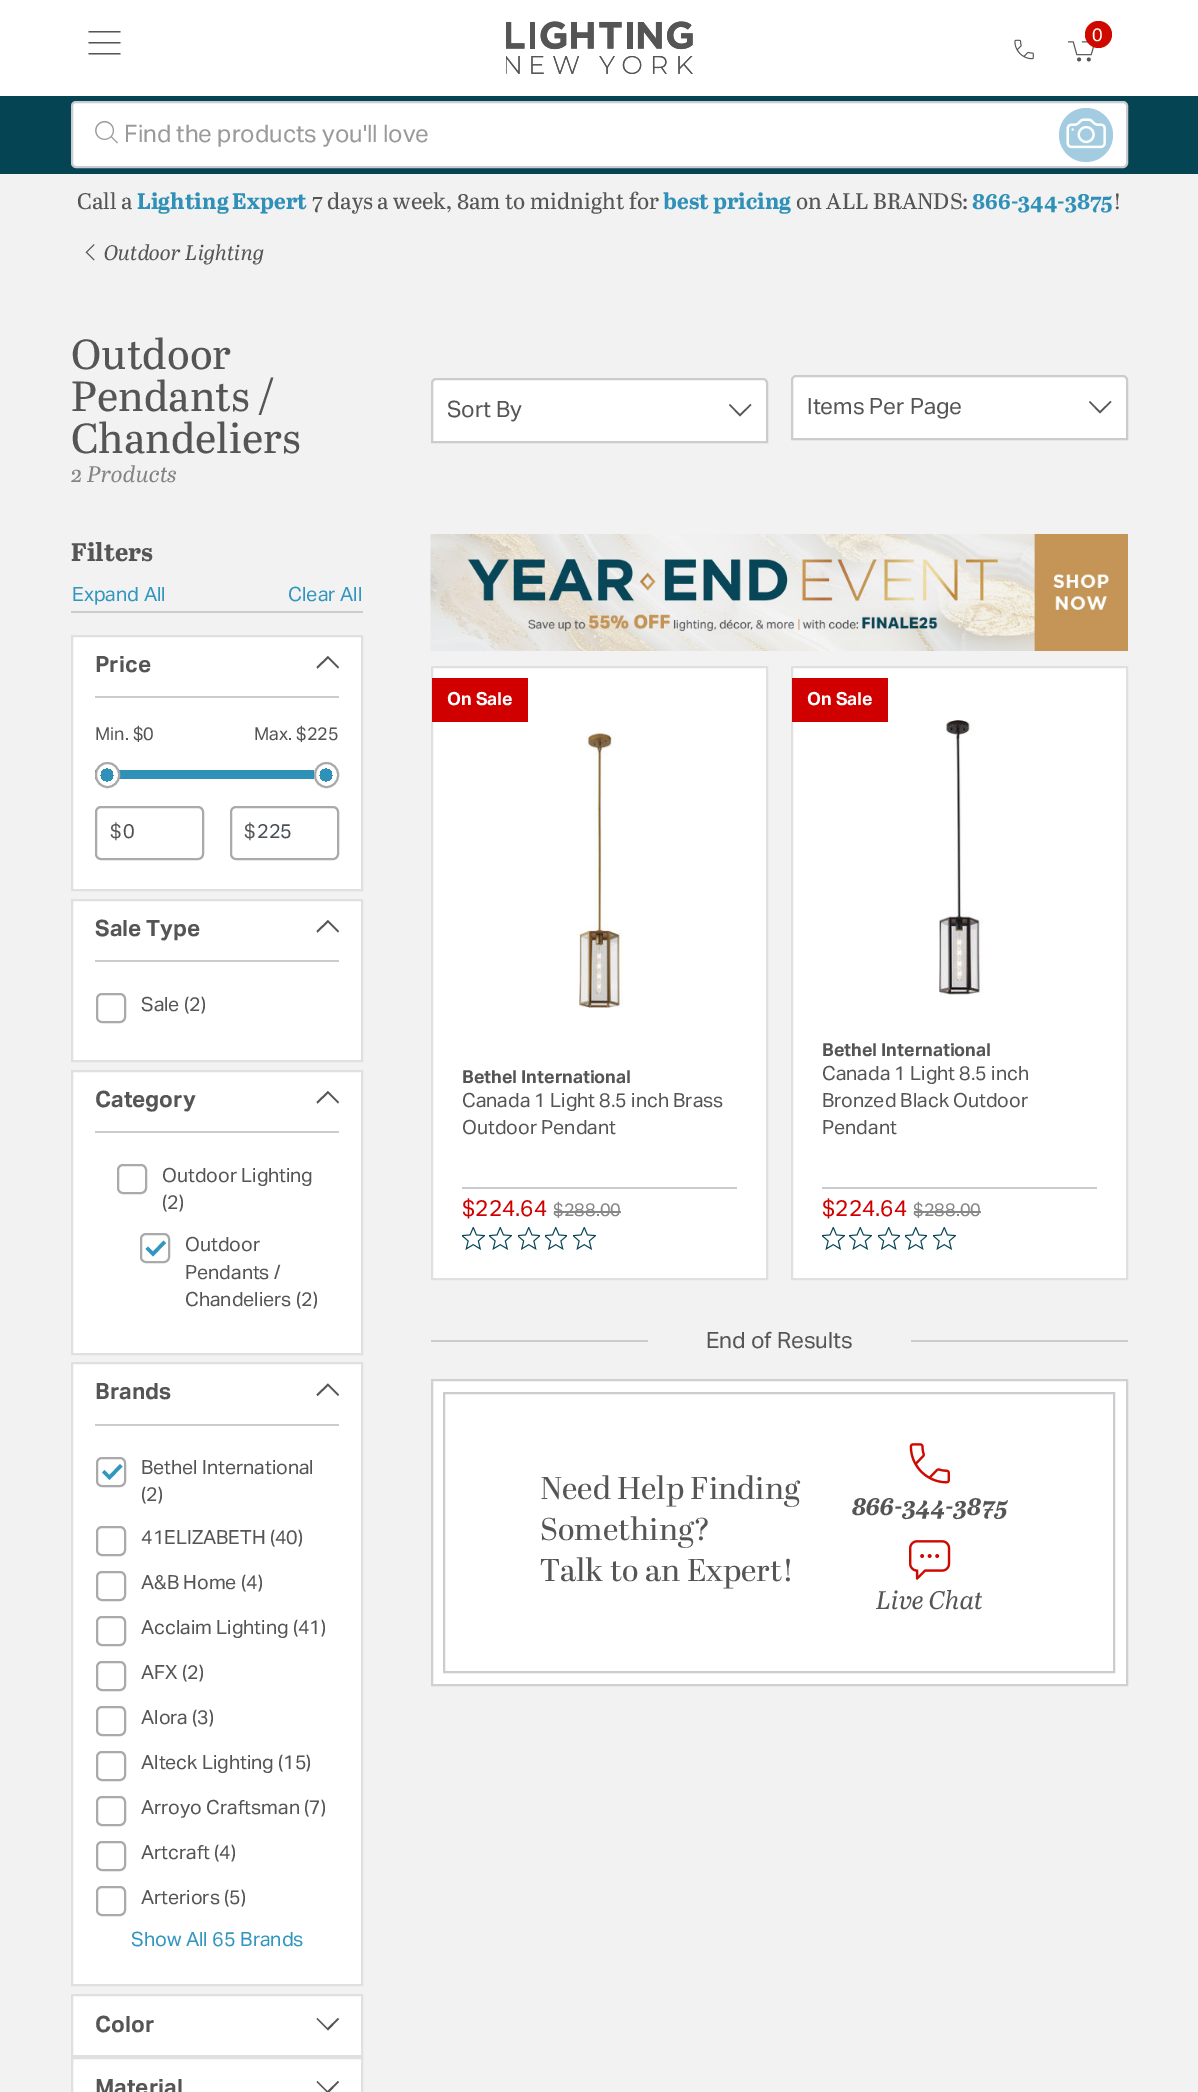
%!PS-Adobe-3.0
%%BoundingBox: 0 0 1198 2092
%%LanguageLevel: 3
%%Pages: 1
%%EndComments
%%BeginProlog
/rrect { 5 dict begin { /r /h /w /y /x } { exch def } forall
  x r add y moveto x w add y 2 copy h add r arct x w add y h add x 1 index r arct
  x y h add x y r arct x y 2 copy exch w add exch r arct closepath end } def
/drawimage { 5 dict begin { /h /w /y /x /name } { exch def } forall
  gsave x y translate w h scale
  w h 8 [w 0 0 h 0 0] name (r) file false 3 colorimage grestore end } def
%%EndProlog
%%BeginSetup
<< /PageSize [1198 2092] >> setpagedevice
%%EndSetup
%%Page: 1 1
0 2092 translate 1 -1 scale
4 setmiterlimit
1 setgray
0 0 1198 2092 rectfill
0.333 setgray
newpath 88.5 31 moveto 120.5 31 lineto 120.5 32.5 lineto 88.5 32.5 lineto closepath 88.5 42 moveto 120.5 42 lineto 120.5 43.5 lineto 88.5 43.5 lineto closepath 88.5 53 moveto 120.5 53 lineto 120.5 54.5 lineto 88.5 54.5 lineto closepath fill
(images/1.raw) 506 21 187 53 drawimage
(images/2.raw) 506 21 187 53 drawimage
(images/3.raw) 1068 41 26 21 drawimage
0.808 0.035 0 setrgbcolor
newpath 1098.5 34.5 13.5 0 360 arc closepath fill
(images/4.raw) 1014 39 20 21 drawimage
0.02 0.267 0.325 setrgbcolor
0 96 1198 78 rectfill
1 setgray
72 102 1055 65 4 rrect gsave fill grestore
0.8 0.8 0.816 setrgbcolor
2 setlinewidth
stroke
(images/5.raw) 95 121 23 23 drawimage
0.643 0.8 0.882 setrgbcolor
newpath 1086 135 27 0 360 arc closepath fill
(images/6.raw) 1066 118 40 31 drawimage
0.949 setgray
0 174 1198 1918 rectfill
(images/7.raw) 85 244 10 17 drawimage
1 setgray
newpath 436 379 moveto 763 379 lineto 765 379 767 381 767 383 curveto 767 442 lineto 432 442 lineto 432 383 lineto 432 381 434 379 436 379 curveto closepath gsave fill grestore
0.8 setgray
stroke
0.333 setgray
newpath 750.5 404 moveto 751.5 405 lineto 740 416.5 lineto 729 405 lineto 730 404 lineto 740 414 lineto closepath fill
1 setgray
newpath 796 376 moveto 1123 376 lineto 1125 376 1127 378 1127 380 curveto 1127 439 lineto 792 439 lineto 792 380 lineto 792 378 794 376 796 376 curveto closepath gsave fill grestore
0.8 setgray
stroke
0.333 setgray
newpath 1110.5 401 moveto 1111.5 402 lineto 1100 413.5 lineto 1089 402 lineto 1090 401 lineto 1100 411 lineto closepath fill
0.8 setgray
71 611 292 2 rectfill
1 setgray
newpath 72 636 moveto 362 636 lineto 362 890 lineto 72 890 lineto closepath gsave fill grestore
0.878 setgray
stroke
0.8 setgray
95 696 244 2 rectfill
0.333 setgray
newpath 317.5 668.5 moveto 316.5 667 lineto 328 656 lineto 339 667 lineto 338 668.5 lineto 328 658.5 lineto closepath fill
0.184 0.565 0.722 setrgbcolor
95 770 219 9 rectfill
gsave
95 762 25 26 12.5 rrect clip newpath
gsave newpath 96 764 moveto 119 764 lineto 119 786 lineto 96 786 lineto closepath clip newpath 107 775 translate 16 16 scale
<< /ShadingType 3 /ColorSpace /DeviceRGB /Coords [0 0 0 0 0 1] /Extend [true true] /Function << /FunctionType 3 /Domain [0 1] /Functions [<< /FunctionType 2 /Domain [0 1] /C0 [0.184 0.565 0.722] /C1 [0.184 0.565 0.722] /N 1 >> << /FunctionType 2 /Domain [0 1] /C0 [1 1 1] /C1 [1 1 1] /N 1 >>] /Bounds [0.42] /Encode [0 1 0 1] >> >> shfill grestore
grestore
0.667 setgray
96 763 23 24 11.5 rrect stroke
gsave
314 762 25 26 12.5 rrect clip newpath
gsave newpath 315 764 moveto 338 764 lineto 338 786 lineto 315 786 lineto closepath clip newpath 326 775 translate 16 16 scale
<< /ShadingType 3 /ColorSpace /DeviceRGB /Coords [0 0 0 0 0 1] /Extend [true true] /Function << /FunctionType 3 /Domain [0 1] /Functions [<< /FunctionType 2 /Domain [0 1] /C0 [0.184 0.565 0.722] /C1 [0.184 0.565 0.722] /N 1 >> << /FunctionType 2 /Domain [0 1] /C0 [1 1 1] /C1 [1 1 1] /N 1 >>] /Bounds [0.42] /Encode [0 1 0 1] >> >> shfill grestore
grestore
315 763 23 24 11.5 rrect stroke
96 807 107 52 5 rrect stroke
231 807 107 52 5 rrect stroke
1 setgray
newpath 72 900 moveto 362 900 lineto 362 1061 lineto 72 1061 lineto closepath gsave fill grestore
0.878 setgray
stroke
0.8 setgray
95 960 244 2 rectfill
0.333 setgray
newpath 317.5 932.5 moveto 316.5 931 lineto 328 920 lineto 339 931 lineto 338 932.5 lineto 328 922.5 lineto closepath fill
0.667 setgray
97 994 28 28 5 rrect stroke
1 setgray
newpath 72 1071 moveto 362 1071 lineto 362 1354 lineto 72 1354 lineto closepath gsave fill grestore
0.878 setgray
stroke
0.8 setgray
95 1131 244 2 rectfill
0.333 setgray
newpath 317.5 1103.5 moveto 316.5 1102 lineto 328 1091 lineto 339 1102 lineto 338 1103.5 lineto 328 1093.5 lineto closepath fill
0.667 setgray
118 1165 28 28 5 rrect stroke
141 1234 28 28 5 rrect stroke
0.2 0.588 0.749 setrgbcolor
newpath 153 1256.5 moveto 145.5 1249 lineto 148 1246.5 lineto 153 1251.5 lineto 163.5 1240.5 lineto 166 1243 lineto closepath fill
1 setgray
newpath 72 1363 moveto 362 1363 lineto 362 1985 lineto 72 1985 lineto closepath gsave fill grestore
0.878 setgray
stroke
0.8 setgray
95 1424 244 2 rectfill
0.333 setgray
newpath 317.5 1396 moveto 316.5 1394.5 lineto 328 1383.5 lineto 339 1394.5 lineto 338 1396 lineto 328 1386 lineto closepath fill
0.667 setgray
97 1458 28 28 5 rrect stroke
0.2 0.588 0.749 setrgbcolor
newpath 109.5 1480 moveto 102 1472.5 lineto 104.5 1470 lineto 109.5 1475 lineto 120 1464 lineto 122.5 1466.5 lineto closepath fill
0.667 setgray
97 1527 28 28 5 rrect stroke
97 1572 28 28 5 rrect stroke
97 1617 28 28 5 rrect stroke
97 1662 28 28 5 rrect stroke
97 1707 28 28 5 rrect stroke
97 1752 28 28 5 rrect stroke
97 1797 28 28 5 rrect stroke
97 1842 28 28 5 rrect stroke
97 1887 28 28 5 rrect stroke
1 setgray
newpath 72 1995 moveto 362 1995 lineto 362 2056 lineto 72 2056 lineto closepath gsave fill grestore
0.878 setgray
stroke
0.333 setgray
newpath 338 2018 moveto 339 2019 lineto 328 2030.5 lineto 316.5 2019 lineto 317.5 2018 lineto 327.5 2028 lineto closepath fill
1 setgray
newpath 72 2058 moveto 362 2058 lineto 362 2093 lineto 72 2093 lineto closepath gsave fill grestore
0.878 setgray
stroke
0.333 setgray
newpath 338 2081 moveto 339 2082 lineto 328 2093.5 lineto 316.5 2082 lineto 317.5 2081 lineto 327.5 2091 lineto closepath fill
(images/8.raw) 430 534 698 117 drawimage
1 setgray
newpath 432 667 moveto 767 667 lineto 767 1279 lineto 432 1279 lineto closepath gsave fill grestore
0.878 setgray
stroke
0.816 0 0 setrgbcolor
432 678 96 44 rectfill
(images/9.raw) 579 733 44 275 drawimage
0.8 setgray
462 1187 275 2 rectfill
(images/10.raw) 462 1227 23 23 drawimage
(images/10.raw) 489 1227 23 23 drawimage
(images/11.raw) 518 1227 22 23 drawimage
(images/11.raw) 545 1227 22 23 drawimage
(images/10.raw) 573 1227 23 23 drawimage
1 setgray
newpath 792 667 moveto 1127 667 lineto 1127 1279 lineto 792 1279 lineto closepath gsave fill grestore
0.878 setgray
stroke
0.816 0 0 setrgbcolor
792 678 96 44 rectfill
(images/12.raw) 939 720 44 275 drawimage
0.8 setgray
822 1187 275 2 rectfill
(images/10.raw) 822 1227 23 23 drawimage
(images/10.raw) 849 1227 23 23 drawimage
(images/11.raw) 878 1227 22 23 drawimage
(images/11.raw) 905 1227 22 23 drawimage
(images/10.raw) 933 1227 23 23 drawimage
431 1340 217 2 rectfill
911 1340 217 2 rectfill
1 setgray
newpath 432 1380 moveto 1127 1380 lineto 1127 1685 lineto 432 1685 lineto closepath gsave fill grestore
0.816 setgray
stroke
0.8 0.8 0.816 setrgbcolor
444 1393 670 279 rectstroke
(images/13.raw) 909 1443 41 41 drawimage
(images/14.raw) 909 1540 42 40 drawimage
/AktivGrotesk-Regular [18 0 0 -18 0 0] selectfont
1 setgray
1092 41 moveto (0) show
/AktivGrotesk-Regular [24 0 0 -24 0 0] selectfont
0.608 0.604 0.604 setrgbcolor
124 142 moveto (Find the products you'll love) show
/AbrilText-Regular [22.5 0 0 -22.5 0 0] selectfont
0.333 setgray
77 209 moveto (Call a) show
/AbrilText-Bold [22.5 0 0 -22.5 0 0] selectfont
0.184 0.565 0.722 setrgbcolor
137 209 moveto (Lighting Expert) show
/AbrilText-Regular [22.5 0 0 -22.5 0 0] selectfont
0.333 setgray
312 209 moveto (7 days a week, 8am to midnight for) show
/AbrilText-Bold [22.5 0 0 -22.5 0 0] selectfont
0.184 0.565 0.722 setrgbcolor
663 209 moveto (best pricing) show
/AbrilText-Regular [22.5 0 0 -22.5 0 0] selectfont
0.333 setgray
796 209 moveto (on ALL BRANDS:) show
/AbrilText-Bold [22.5 0 0 -22.5 0 0] selectfont
0.184 0.565 0.722 setrgbcolor
972 209 moveto (866-344-3875) show
/AbrilText-Regular [22.5 0 0 -22.5 0 0] selectfont
0.333 setgray
1113 209 moveto (!) show
/AbrilText-Italic [21 0 0 -21 0 0] selectfont
104 260 moveto (Outdoor Lighting) show
/AbrilText-Regular [42 0 0 -42 0 0] selectfont
71 369 moveto (Outdoor) show
71 411 moveto (Pendants /) show
71 453 moveto (Chandeliers) show
/AbrilText-Italic [22.5 0 0 -22.5 0 0] selectfont
0.518 setgray
71 482 moveto (2 Products) show
/AktivGrotesk-Regular [22.5 0 0 -22.5 0 0] selectfont
0.333 setgray
447 417 moveto (Sort By) show
807 414 moveto (Items Per Page) show
/AbrilText-Bold [25.5 0 0 -25.5 0 0] selectfont
71 561 moveto (Filters) show
/AktivGrotesk-Regular [19.75 0 0 -19.75 0 0] selectfont
0.2 0.588 0.749 setrgbcolor
72 601 moveto (Expand All) show
288 601 moveto (Clear All) show
/AktivGrotesk-Bold [22.5 0 0 -22.5 0 0] selectfont
0.333 setgray
95 672 moveto (Price) show
/AktivGrotesk-Regular [18 0 0 -18 0 0] selectfont
95 740 moveto (Min. $0) show
254 740 moveto (Max. $225) show
/AktivGrotesk-Regular [19.75 0 0 -19.75 0 0] selectfont
110 838 moveto ($) show
0.286 0.314 0.341 setrgbcolor
123 838 moveto (0) show
0.333 setgray
244 838 moveto ($) show
0.286 0.314 0.341 setrgbcolor
257 838 moveto (225) show
/AktivGrotesk-Bold [22.5 0 0 -22.5 0 0] selectfont
0.333 setgray
95 936 moveto (Sale Type) show
/AktivGrotesk-Regular [19.5 0 0 -19.5 0 0] selectfont
141 1011 moveto (Sale \(2\)) show
/AktivGrotesk-Bold [22.5 0 0 -22.5 0 0] selectfont
95 1107 moveto (Category) show
/AktivGrotesk-Regular [19.5 0 0 -19.5 0 0] selectfont
162 1182 moveto (Outdoor Lighting) show
162 1209 moveto (\(2\)) show
185 1251 moveto (Outdoor) show
185 1279 moveto (Pendants /) show
185 1306 moveto (Chandeliers \(2\)) show
/AktivGrotesk-Bold [22.5 0 0 -22.5 0 0] selectfont
95 1399 moveto (Brands) show
/AktivGrotesk-Regular [19.5 0 0 -19.5 0 0] selectfont
141 1474 moveto (Bethel International) show
141 1501 moveto (\(2\)) show
141 1544 moveto (41ELIZABETH \(40\)) show
141 1589 moveto (A&B Home \(4\)) show
141 1634 moveto (Acclaim Lighting \(41\)) show
141 1679 moveto (AFX \(2\)) show
141 1724 moveto (Alora \(3\)) show
141 1769 moveto (Alteck Lighting \(15\)) show
141 1814 moveto (Arroyo Craftsman \(7\)) show
141 1859 moveto (Artcraft \(4\)) show
141 1904 moveto (Arteriors \(5\)) show
/AktivGrotesk-Regular [19.75 0 0 -19.75 0 0] selectfont
0.2 0.588 0.749 setrgbcolor
131 1946 moveto (Show All 65 Brands) show
/AktivGrotesk-Bold [22.5 0 0 -22.5 0 0] selectfont
0.333 setgray
95 2032 moveto (Color) show
95 2095 moveto (Material) show
/AktivGrotesk-Bold [18 0 0 -18 0 0] selectfont
1 setgray
447 705 moveto (On Sale) show
0.333 setgray
462 1083 moveto (Bethel International) show
/AktivGrotesk-Regular [19.5 0 0 -19.5 0 0] selectfont
462 1107 moveto (Canada 1 Light 8.5 inch Brass) show
462 1134 moveto (Outdoor Pendant) show
/AktivGrotesk-Regular [22.5 0 0 -22.5 0 0] selectfont
0.816 0 0 setrgbcolor
462 1216 moveto ($224.64) show
/AktivGrotesk-Regular [18 0 0 -18 0 0] selectfont
0.518 setgray
553 1216 moveto ($288.00) show
0.533 setgray
554 1211 67 2 rectfill
/AktivGrotesk-Bold [18 0 0 -18 0 0] selectfont
1 setgray
807 705 moveto (On Sale) show
0.333 setgray
822 1056 moveto (Bethel International) show
/AktivGrotesk-Regular [19.5 0 0 -19.5 0 0] selectfont
822 1080 moveto (Canada 1 Light 8.5 inch) show
822 1107 moveto (Bronzed Black Outdoor) show
822 1134 moveto (Pendant) show
/AktivGrotesk-Regular [22.5 0 0 -22.5 0 0] selectfont
0.816 0 0 setrgbcolor
822 1216 moveto ($224.64) show
/AktivGrotesk-Regular [18 0 0 -18 0 0] selectfont
0.518 setgray
913 1216 moveto ($288.00) show
0.533 setgray
914 1211 67 2 rectfill
/AktivGrotesk-Regular [22.5 0 0 -22.5 0 0] selectfont
0.333 setgray
706 1348 moveto (End of Results) show
/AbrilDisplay-Regular [31.5 0 0 -31.5 0 0] selectfont
540 1499 moveto (Need Help Finding) show
540 1540 moveto (Something?) show
540 1581 moveto (Talk to an Expert!) show
/AbrilText-BoldItalic [25.5 0 0 -25.5 0 0] selectfont
852 1515 moveto (866-344-3875) show
/AbrilText-Italic [25.5 0 0 -25.5 0 0] selectfont
876 1609 moveto (Live Chat) show
showpage
%%EOF
